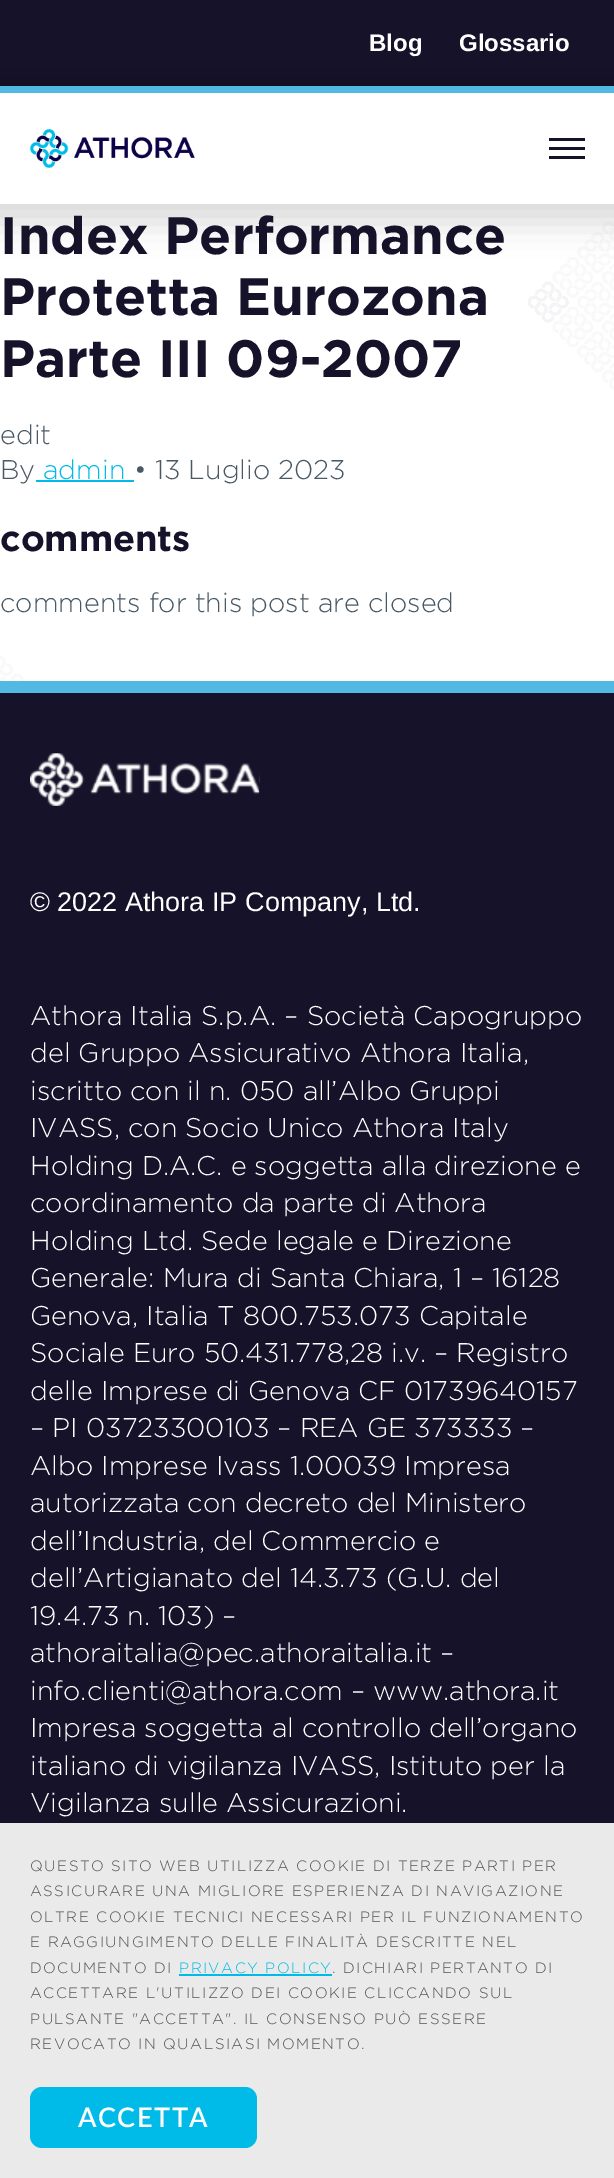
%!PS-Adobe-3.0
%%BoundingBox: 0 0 614 2178
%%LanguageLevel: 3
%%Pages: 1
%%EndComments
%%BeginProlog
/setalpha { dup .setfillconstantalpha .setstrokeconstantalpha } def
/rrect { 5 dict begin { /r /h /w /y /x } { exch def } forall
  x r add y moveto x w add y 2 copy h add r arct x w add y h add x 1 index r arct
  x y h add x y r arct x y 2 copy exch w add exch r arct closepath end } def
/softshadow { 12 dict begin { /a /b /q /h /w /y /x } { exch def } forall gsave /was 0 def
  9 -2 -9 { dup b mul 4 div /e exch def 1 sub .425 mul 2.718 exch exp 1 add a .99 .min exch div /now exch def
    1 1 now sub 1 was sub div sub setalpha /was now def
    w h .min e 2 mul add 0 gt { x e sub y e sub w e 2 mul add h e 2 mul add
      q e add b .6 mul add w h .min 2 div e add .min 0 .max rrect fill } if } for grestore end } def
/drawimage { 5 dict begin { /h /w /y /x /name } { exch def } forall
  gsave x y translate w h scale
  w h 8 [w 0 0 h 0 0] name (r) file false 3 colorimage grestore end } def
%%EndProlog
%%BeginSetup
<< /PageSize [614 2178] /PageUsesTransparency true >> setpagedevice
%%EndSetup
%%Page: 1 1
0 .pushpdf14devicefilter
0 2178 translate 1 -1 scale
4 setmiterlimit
1 setgray
0 0 614 2178 rectfill
(images/1.raw) 0 221 614 460 drawimage
0.082 0.071 0.161 setrgbcolor
0 0 614 86 rectfill
gsave
newpath 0 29 moveto 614 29 lineto 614 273 lineto 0 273 lineto closepath 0 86 moveto 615 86 lineto 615 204 lineto 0 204 lineto closepath eoclip newpath
0 setgray
-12 80 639 142 0 16.5 0.15 softshadow
grestore
0.318 0.725 0.886 setrgbcolor
0 86 614 7 rectfill
(images/2.raw) 30 129 165 39 drawimage
0.082 0.071 0.161 setrgbcolor
549 138 36 3 rectfill
549 147 36 3 rectfill
549 156 36 3 rectfill
0 0.733 0.906 setrgbcolor
36 480 98 2 rectfill
0.082 0.071 0.161 setrgbcolor
0 693 614 1130 rectfill
0.318 0.725 0.886 setrgbcolor
0 681 614 12 rectfill
(images/3.raw) 30 753 230 53 drawimage
0.918 setgray
0 1823 614 355 rectfill
0 0.733 0.906 setrgbcolor
179 1974 153 2 rectfill
30 2087 227 61 12 rrect fill
/LiberationSans-Bold [24 0 0 -24 0 0] selectfont
1 setgray
369 51 moveto (Blog) show
459 51 moveto (Glossario) show
/Gotham-Bold [52.5 0 0 -52.5 0 0] selectfont
0.082 0.071 0.161 setrgbcolor
0 254 moveto (Index Performance) show
0 315 moveto (Protetta Eurozona) show
0 377 moveto (Parte III 09-2007) show
/Gotham-Light [27 0 0 -27 0 0] selectfont
0.282 0.349 0.396 setrgbcolor
0 444 moveto (edit) show
0 479 moveto (By) show
0 0.733 0.906 setrgbcolor
43 479 moveto (admin) show
0.282 0.349 0.396 setrgbcolor
134 479 moveto (• 13 Luglio 2023) show
/Gotham-Bold [36 0 0 -36 0 0] selectfont
0.082 0.071 0.161 setrgbcolor
0 551 moveto (comments) show
/Gotham-Light [27 0 0 -27 0 0] selectfont
0.282 0.349 0.396 setrgbcolor
0 612 moveto (comments for this post are closed) show
/LiberationSans-Regular [27 0 0 -27 0 0] selectfont
1 setgray
30 911 moveto (© 2022 Athora IP Company, Ltd.) show
/Gotham-Light [27 0 0 -27 0 0] selectfont
30 1025 moveto (Athora Italia S.p.A. – Società Capogruppo) show
30 1062 moveto (del Gruppo Assicurativo Athora Italia,) show
30 1100 moveto (iscritto con il n. 050 all’Albo Gruppi) show
30 1137 moveto (IVASS, con Socio Unico Athora Italy) show
30 1175 moveto (Holding D.A.C. e soggetta alla direzione e) show
30 1212 moveto (coordinamento da parte di Athora) show
30 1250 moveto (Holding Ltd. Sede legale e Direzione) show
30 1287 moveto (Generale: Mura di Santa Chiara, 1 – 16128) show
30 1325 moveto (Genova, Italia T 800.753.073 Capitale) show
30 1362 moveto (Sociale Euro 50.431.778,28 i.v. – Registro) show
30 1400 moveto (delle Imprese di Genova CF 01739640157) show
30 1437 moveto (– PI 03723300103 – REA GE 373333 –) show
30 1475 moveto (Albo Imprese Ivass 1.00039 Impresa) show
30 1512 moveto (autorizzata con decreto del Ministero) show
30 1550 moveto (dell’Industria, del Commercio e) show
30 1587 moveto (dell’Artigianato del 14.3.73 \(G.U. del) show
30 1625 moveto (19.4.73 n. 103\) –) show
30 1662 moveto (athoraitalia@pec.athoraitalia.it –) show
30 1700 moveto (info.clienti@athora.com – www.athora.it) show
30 1737 moveto (Impresa soggetta al controllo dell’organo) show
30 1775 moveto (italiano di vigilanza IVASS, Istituto per la) show
30 1812 moveto (Vigilanza sulle Assicurazioni.) show
/Gotham-Light [15 0 0 -15 0 0] selectfont
0.322 setgray
30 1871 moveto 1.5 0 (QUESTO SITO WEB UTILIZZA COOKIE DI TERZE PARTI PER) ashow
30 1896 moveto 1.5 0 (ASSICURARE UNA MIGLIORE ESPERIENZA DI NAVIGAZIONE) ashow
30 1922 moveto 1.5 0 (OLTRE COOKIE TECNICI NECESSARI PER IL FUNZIONAMENTO) ashow
30 1947 moveto 1.5 0 (E RAGGIUNGIMENTO DELLE FINALITÀ DESCRITTE NEL) ashow
30 1973 moveto 1.5 0 (DOCUMENTO DI) ashow
0 0.733 0.906 setrgbcolor
179 1973 moveto 1.5 0 (PRIVACY POLICY) ashow
0.322 setgray
332 1973 moveto 1.5 0 (. DICHIARI PERTANTO DI) ashow
30 1998 moveto 1.5 0 (ACCETTARE L'UTILIZZO DEI COOKIE CLICCANDO SUL) ashow
30 2024 moveto 1.5 0 (PULSANTE "ACCETTA". IL CONSENSO PUÒ ESSERE) ashow
30 2049 moveto 1.5 0 (REVOCATO IN QUALSIASI MOMENTO.) ashow
/Lato-SemiBold [27 0 0 -27 0 0] selectfont
1 setgray
78 2127 moveto 1.5 0 (ACCETTA) ashow
.poppdf14devicefilter showpage
%%EOF
